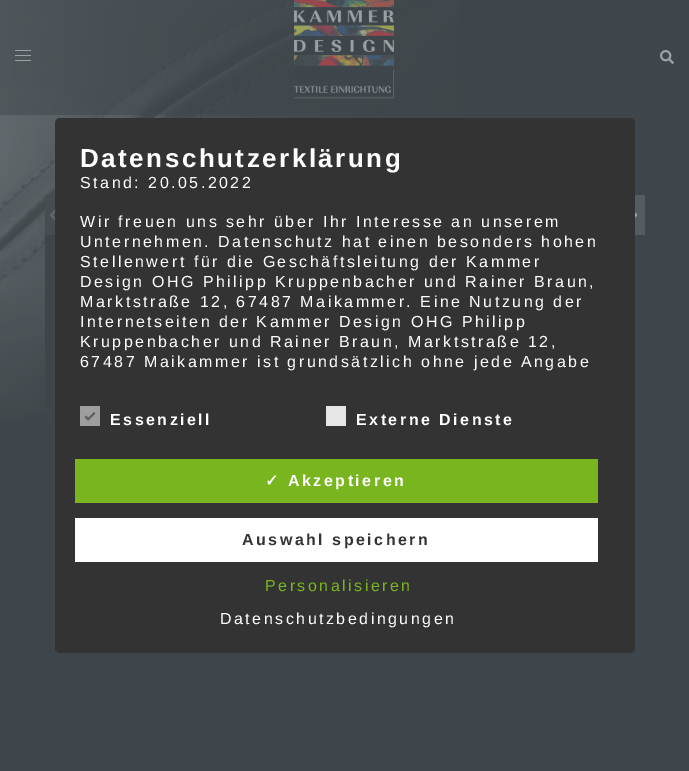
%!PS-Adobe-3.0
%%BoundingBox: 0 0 689 771
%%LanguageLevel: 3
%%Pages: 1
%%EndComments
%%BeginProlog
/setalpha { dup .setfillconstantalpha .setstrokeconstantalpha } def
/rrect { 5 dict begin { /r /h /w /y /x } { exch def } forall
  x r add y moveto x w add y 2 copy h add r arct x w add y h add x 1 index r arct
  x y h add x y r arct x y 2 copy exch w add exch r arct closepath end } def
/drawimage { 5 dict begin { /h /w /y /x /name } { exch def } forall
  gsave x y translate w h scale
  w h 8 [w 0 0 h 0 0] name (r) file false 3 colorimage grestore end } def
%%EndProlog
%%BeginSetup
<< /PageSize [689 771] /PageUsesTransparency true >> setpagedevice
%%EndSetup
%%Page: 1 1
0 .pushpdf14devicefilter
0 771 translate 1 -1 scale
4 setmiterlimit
0.247 0.275 0.294 setrgbcolor
0 0 689 771 rectfill
(images/1.raw) 0 0 459 421 drawimage
0.5 setalpha
0 0 386 115 rectfill
1 setalpha
0.608 0.635 0.655 setrgbcolor
15 50 16 1 rectfill
15 55 16 1 rectfill
15 60 16 1 rectfill
(images/2.raw) 294 0 100 100 drawimage
(images/3.raw) 660 50 14 14 drawimage
0.247 0.275 0.294 setrgbcolor
45 235 215 173 rectfill
0.271 0.302 0.318 setrgbcolor
45 195 10 40 rectfill
(images/4.raw) 49 209 6 12 drawimage
0.329 0.361 0.376 setrgbcolor
635 195 10 40 rectfill
(images/5.raw) 635 212 3 6 drawimage
0.2 setgray
55 118 580 535 5 rrect fill
0.62 setgray
80 406 20 20 rectfill
0.369 setgray
newpath 94 412 moveto 95.5 413.5 lineto 88 420.5 lineto 87 419 lineto closepath fill
newpath 86 415.5 moveto 89.5 419 lineto 88 420.5 lineto 84.5 417 lineto closepath fill
0.902 setgray
326 406 20 20 rectfill
0.475 0.71 0.122 setrgbcolor
75 459 523 44 rectfill
1 setgray
75 518 523 44 rectfill
/LiberationSans-Bold [26 0 0 -26 0 0] selectfont
80 167 moveto 2.5 0 (Datenschutzerklärung) ashow
/LiberationSans-Regular [16 0 0 -16 0 0] selectfont
80 188 moveto 2.5 0 (Stand: 20.05.2022) ashow
80 227 moveto 2.5 0 (Wir freuen uns sehr über Ihr Interesse an unserem) ashow
80 247 moveto 2.5 0 (Unternehmen. Datenschutz hat einen besonders hohen) ashow
80 267 moveto 2.5 0 (Stellenwert für die Geschäftsleitung der Kammer) ashow
80 287 moveto 2.5 0 (Design OHG Philipp Kruppenbacher und Rainer Braun,) ashow
80 307 moveto 2.5 0 (Marktstraße 12, 67487 Maikammer. Eine Nutzung der) ashow
80 327 moveto 2.5 0 (Internetseiten der Kammer Design OHG Philipp) ashow
80 347 moveto 2.5 0 (Kruppenbacher und Rainer Braun, Marktstraße 12,) ashow
80 367 moveto 2.5 0 (67487 Maikammer ist grundsätzlich ohne jede Angabe) ashow
/LiberationSans-Bold [16 0 0 -16 0 0] selectfont
110 425 moveto 2.5 0 (Essenziell) ashow
356 425 moveto 2.5 0 (Externe Dienste) ashow
/DejaVuSans-Bold [16 0 0 -16 0 0] selectfont
265 486 moveto 2.5 0 (✓) ashow
/LiberationSans-Bold [16 0 0 -16 0 0] selectfont
288 486 moveto 2.5 0 (Akzeptieren) ashow
0.2 setgray
242 545 moveto 2.5 0 (Auswahl speichern) ashow
/LiberationSans-Regular [16 0 0 -16 0 0] selectfont
0.475 0.71 0.122 setrgbcolor
265 591 moveto 2.5 0 (Personalisieren) ashow
1 setgray
220 624 moveto 2.5 0 (Datenschutzbedingungen) ashow
.poppdf14devicefilter showpage
%%EOF
